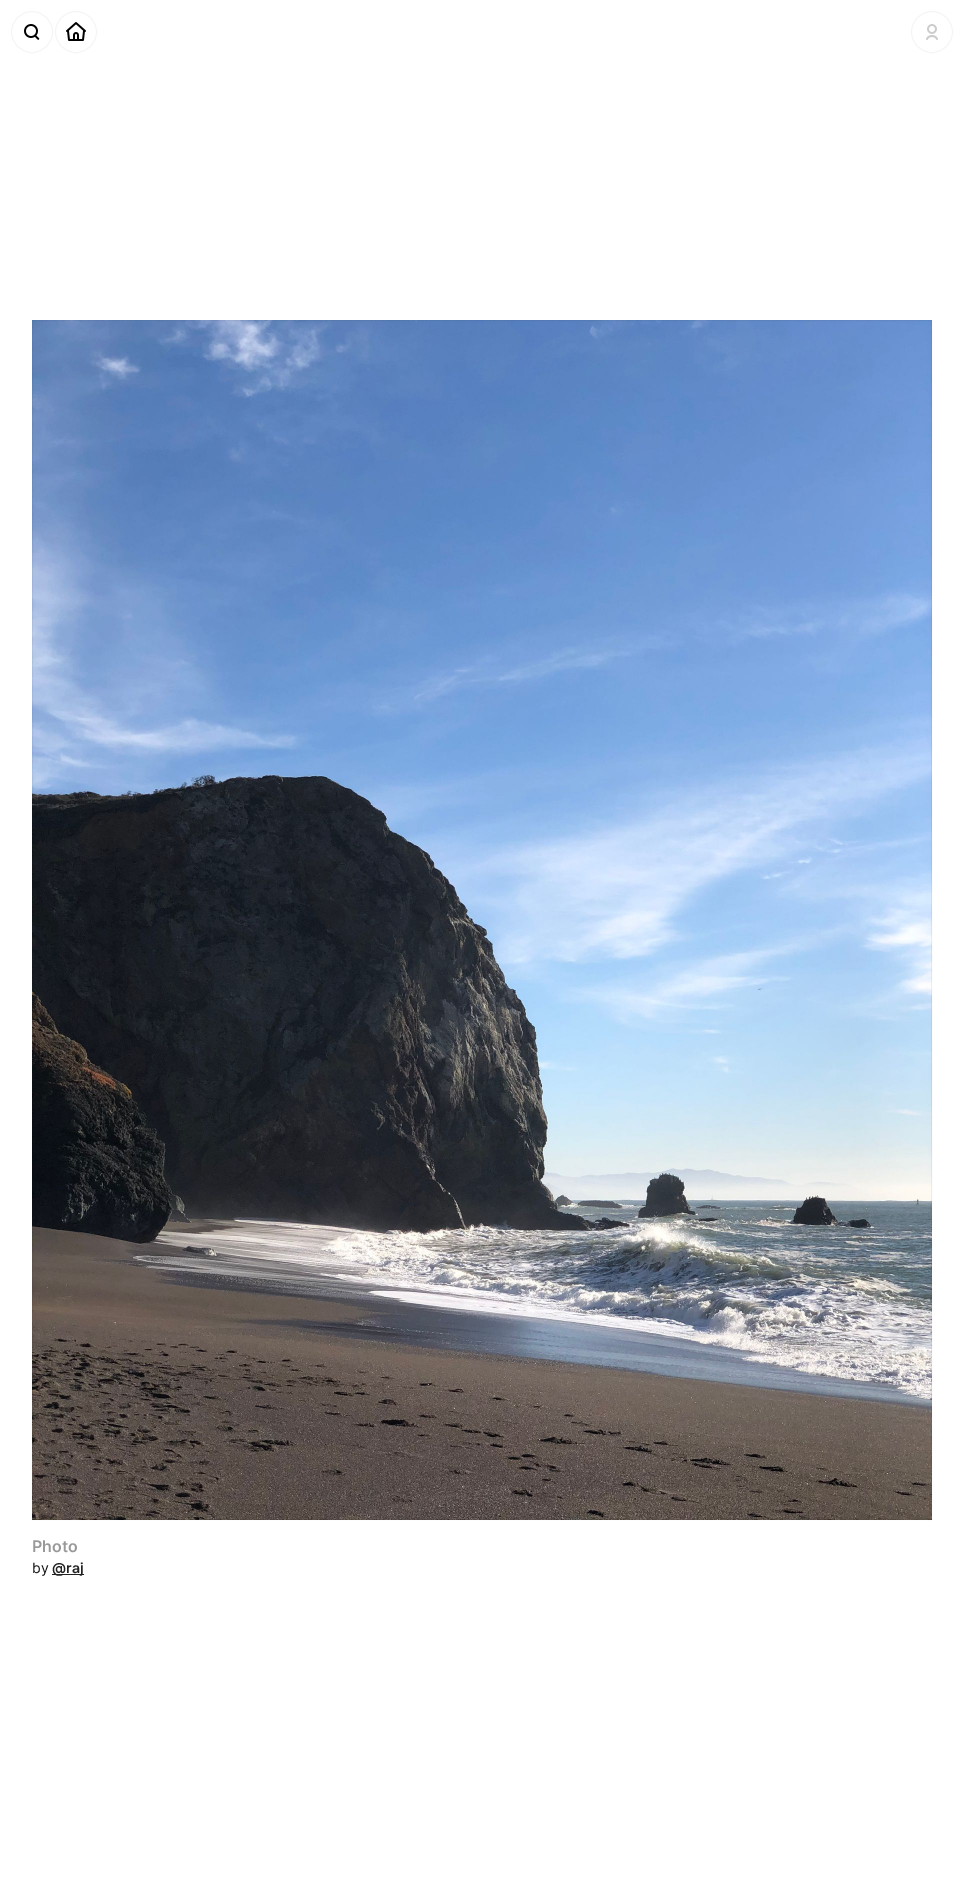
%!PS-Adobe-3.0
%%BoundingBox: 0 0 964 1903
%%LanguageLevel: 3
%%Pages: 1
%%EndComments
%%BeginProlog
/setalpha { dup .setfillconstantalpha .setstrokeconstantalpha } def
/drawimage { 5 dict begin { /h /w /y /x /name } { exch def } forall
  gsave x y translate w h scale
  w h 8 [w 0 0 h 0 0] name (r) file false 3 colorimage grestore end } def
%%EndProlog
%%BeginSetup
<< /PageSize [964 1903] /PageUsesTransparency true >> setpagedevice
%%EndSetup
%%Page: 1 1
0 .pushpdf14devicefilter
0 1903 translate 1 -1 scale
4 setmiterlimit
1 setgray
0 0 964 1903 rectfill
0.961 setgray
newpath 32 32 20.5 0 360 arc closepath stroke
(images/1.raw) 24 24 16 16 drawimage
newpath 76 32 20.5 0 360 arc closepath stroke
(images/2.raw) 66 22 20 19 drawimage
newpath 932 32 20.5 0 360 arc closepath stroke
(images/3.raw) 926 24 12 16 drawimage
(images/4.raw) 32 320 900 1200 drawimage
0.05 setalpha
0 setgray
32.5 320.5 899 1199 rectstroke
1 setalpha
0.133 setgray
52 1574 32 1 rectfill
/Inter-SemiBold [16 0 0 -16 0 0] selectfont
0.6 setgray
32 1552 moveto (Photo) show
/Inter-Regular [14 0 0 -14 0 0] selectfont
0.067 setgray
32 1573 moveto (by) show
/Inter-SemiBold [14 0 0 -14 0 0] selectfont
0.133 setgray
52 1573 moveto (@raj) show
.poppdf14devicefilter showpage
%%EOF
